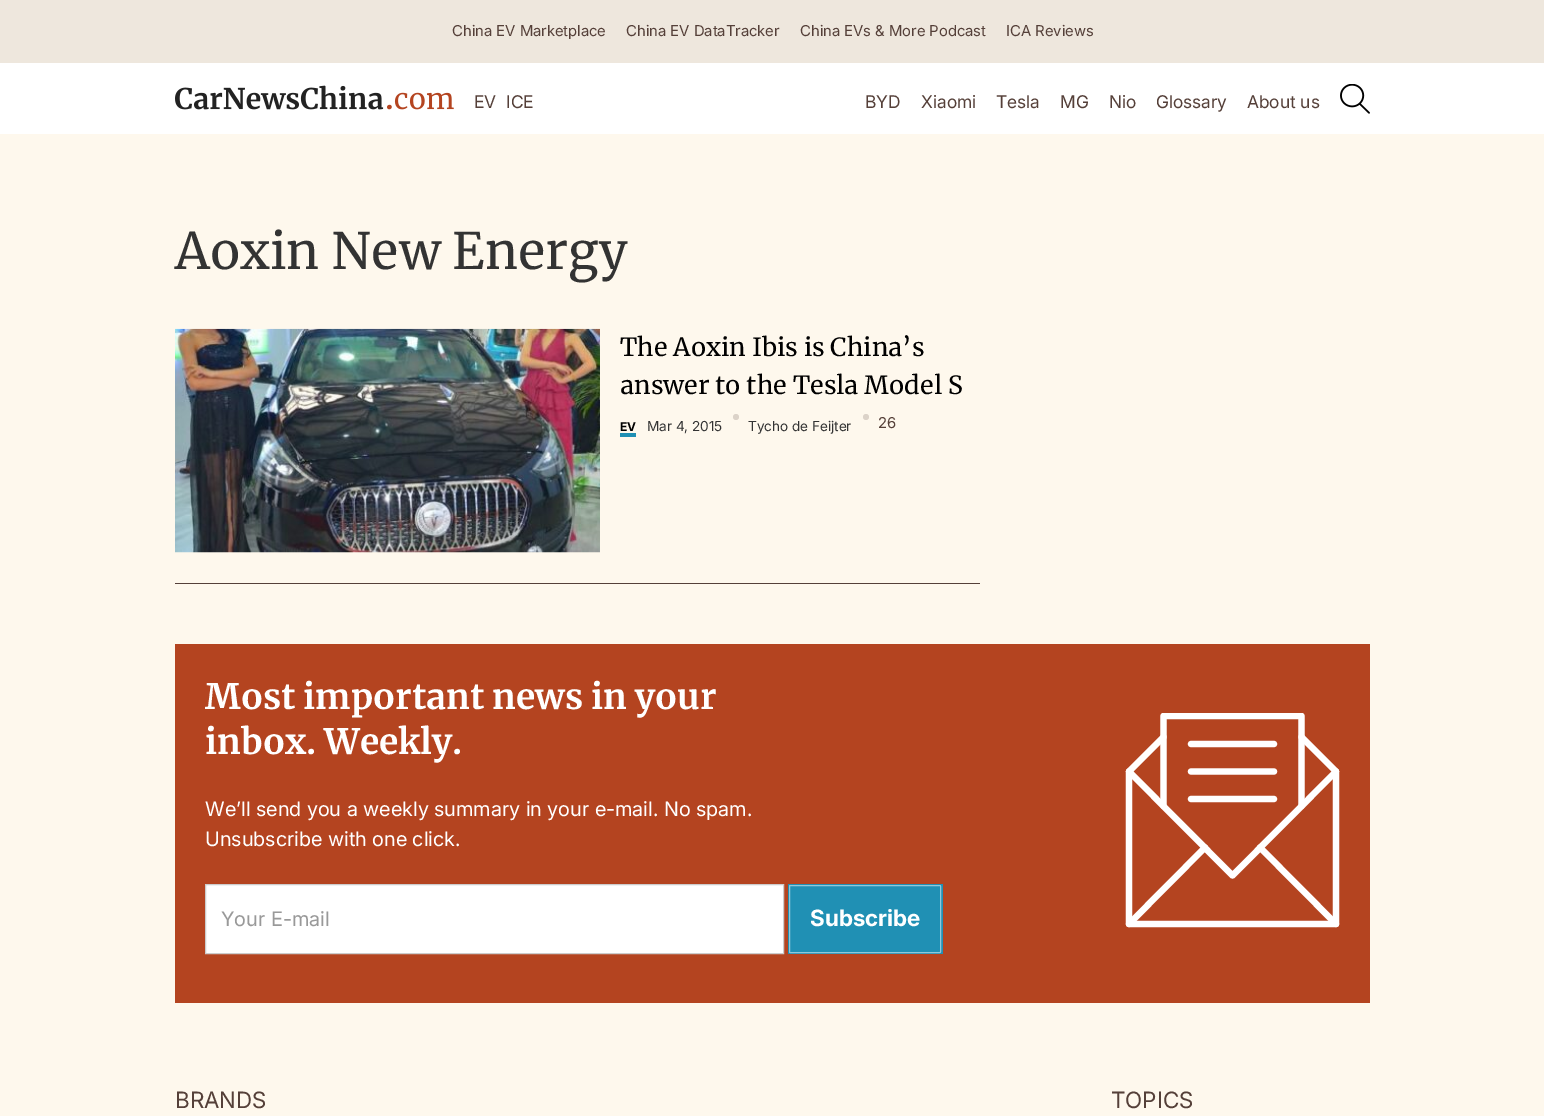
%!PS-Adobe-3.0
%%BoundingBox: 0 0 1544 1116
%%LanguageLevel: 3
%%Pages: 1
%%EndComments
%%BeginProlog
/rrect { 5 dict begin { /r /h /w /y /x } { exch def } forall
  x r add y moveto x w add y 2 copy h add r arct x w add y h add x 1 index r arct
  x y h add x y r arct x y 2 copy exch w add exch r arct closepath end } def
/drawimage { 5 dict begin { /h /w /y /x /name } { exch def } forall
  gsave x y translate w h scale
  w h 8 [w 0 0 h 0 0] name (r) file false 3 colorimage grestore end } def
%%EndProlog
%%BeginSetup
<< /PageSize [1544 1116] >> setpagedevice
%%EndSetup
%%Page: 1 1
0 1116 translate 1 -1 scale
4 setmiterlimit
1 setgray
0 0 1544 1116 rectfill
0.933 0.906 0.867 setrgbcolor
0 0 1544 63 rectfill
(images/1.raw) 175 85 279 25 drawimage
(images/2.raw) 1340 84 30 30 drawimage
0.996 0.973 0.929 setrgbcolor
0 134 1544 982 rectfill
0.333 0.251 0.224 setrgbcolor
175 583 805 1 rectfill
(images/3.raw) 175 328 425 225 drawimage
0.125 0.565 0.706 setrgbcolor
620 433 16 4 rectfill
0.863 0.827 0.788 setrgbcolor
newpath 736 417 3 0 360 arc closepath fill
newpath 866 417 3 0 360 arc closepath fill
0.706 0.267 0.125 setrgbcolor
175 644 1195 359 rectfill
1 setgray
newpath 205.5 884.5 moveto 783.5 884.5 lineto 783.5 953.5 lineto 205.5 953.5 lineto closepath gsave fill grestore
0.8 setgray
stroke
0.125 0.565 0.706 setrgbcolor
788 884 155 70 rectfill
0.565 0.784 0.855 setrgbcolor
789.5 885.5 151 67 0.5 rrect stroke
1 setgray
6.2 setlinewidth
1 setlinecap
1 setlinejoin
newpath 1336 771.5 moveto 1336 924 lineto 1129 924 lineto 1129 771.5 lineto stroke
newpath 1163.5 737 moveto 1129 771.5 lineto 1232.5 875.5 lineto 1336 771.5 lineto 1301.5 737 lineto stroke
gsave
1125 713 215 215 rectclip
newpath 1163.5 806 moveto 1163.5 716 lineto 1301.5 716 lineto 1301.5 806 lineto stroke
grestore
newpath 1191 744 moveto 1274 744 lineto stroke
newpath 1191 771.5 moveto 1274 771.5 lineto stroke
newpath 1191 799 moveto 1274 799 lineto stroke
newpath 1129 924 moveto 1205 847.5 lineto stroke
newpath 1336 924 moveto 1260 847.5 lineto stroke
/Inter-Regular [15 0 0 -15 0 0] selectfont
0.333 0.251 0.224 setrgbcolor
452 36 moveto (China EV Marketplace) show
626 36 moveto (China EV DataTracker) show
800 36 moveto (China EVs & More Podcast) show
1006 36 moveto (ICA Reviews) show
/Inter-Regular [17.5 0 0 -17.5 0 0] selectfont
474 108 moveto (EV) show
506 108 moveto (ICE) show
865 108 moveto (BYD) show
921 108 moveto (Xiaomi) show
996 108 moveto (Tesla) show
1060 108 moveto (MG) show
1109 108 moveto (Nio) show
1156 108 moveto (Glossary) show
1247 108 moveto (About us) show
/Merriweather-Regular [50 0 0 -50 0 0] selectfont
0.2 setgray
175 269 moveto (Aoxin New Energy) show
/Merriweather-Regular [25 0 0 -25 0 0] selectfont
0 setgray
620 356 moveto (The Aoxin Ibis is China’s) show
620 394 moveto (answer to the Tesla Model S) show
/Inter-Bold [12 0 0 -12 0 0] selectfont
620 431 moveto (EV) show
/Inter-Regular [13.75 0 0 -13.75 0 0] selectfont
0.2 setgray
647 431 moveto (Mar 4, 2015) show
748 431 moveto (Tycho de Feijter) show
/Inter-Regular [15 0 0 -15 0 0] selectfont
0.333 0.251 0.224 setrgbcolor
878 428 moveto (26) show
/Merriweather-Bold [35 0 0 -35 0 0] selectfont
1 setgray
205 709 moveto (Most important news in your) show
205 754 moveto (inbox. Weekly.) show
/Inter-Regular [20 0 0 -20 0 0] selectfont
205 816 moveto (We’ll send you a weekly summary in your e-mail. No spam.) show
205 846 moveto (Unsubscribe with one click.) show
0.6 setgray
221 926 moveto (Your E-mail) show
/Inter-Bold [22.5 0 0 -22.5 0 0] selectfont
1 setgray
810 926 moveto (Subscribe) show
/Inter-Regular [22.5 0 0 -22.5 0 0] selectfont
0.333 0.251 0.224 setrgbcolor
175 1108 moveto (BRANDS) show
1111 1108 moveto (TOPICS) show
showpage
%%EOF
